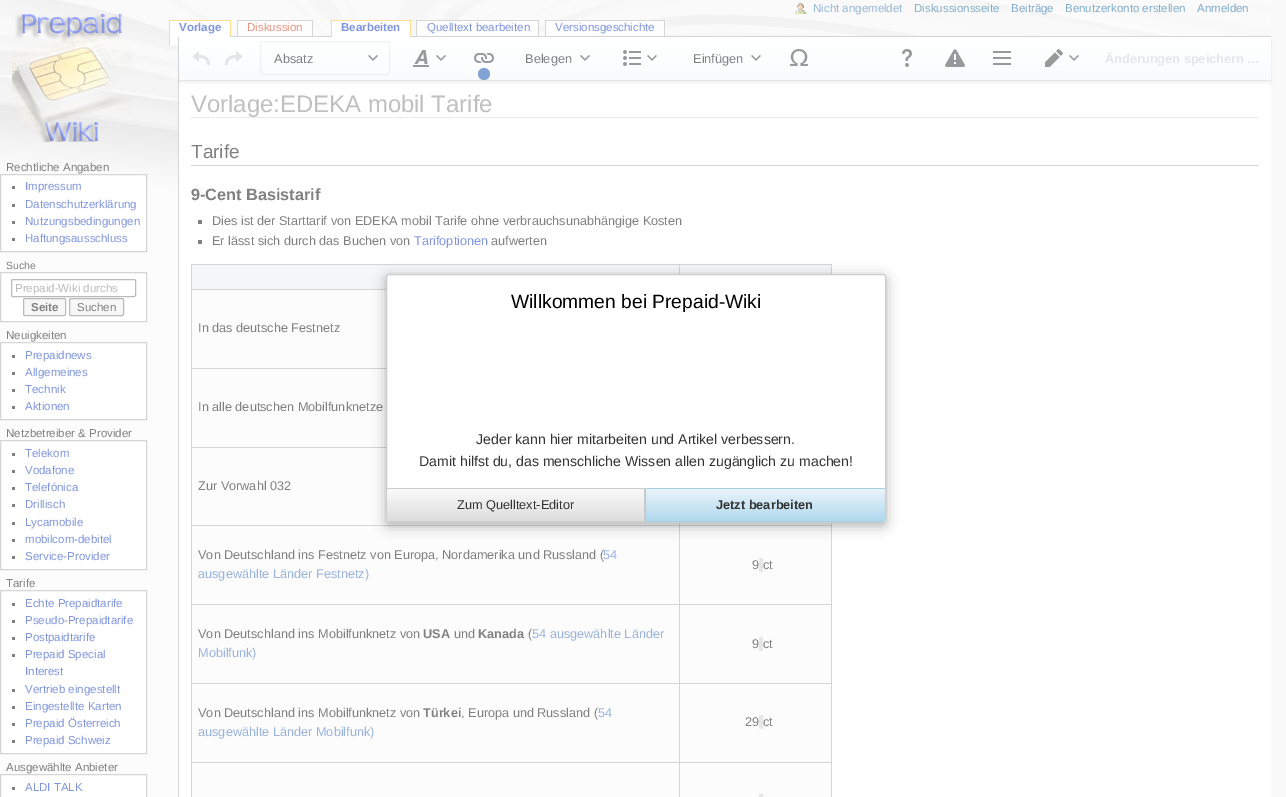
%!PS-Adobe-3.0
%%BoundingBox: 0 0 1286 797
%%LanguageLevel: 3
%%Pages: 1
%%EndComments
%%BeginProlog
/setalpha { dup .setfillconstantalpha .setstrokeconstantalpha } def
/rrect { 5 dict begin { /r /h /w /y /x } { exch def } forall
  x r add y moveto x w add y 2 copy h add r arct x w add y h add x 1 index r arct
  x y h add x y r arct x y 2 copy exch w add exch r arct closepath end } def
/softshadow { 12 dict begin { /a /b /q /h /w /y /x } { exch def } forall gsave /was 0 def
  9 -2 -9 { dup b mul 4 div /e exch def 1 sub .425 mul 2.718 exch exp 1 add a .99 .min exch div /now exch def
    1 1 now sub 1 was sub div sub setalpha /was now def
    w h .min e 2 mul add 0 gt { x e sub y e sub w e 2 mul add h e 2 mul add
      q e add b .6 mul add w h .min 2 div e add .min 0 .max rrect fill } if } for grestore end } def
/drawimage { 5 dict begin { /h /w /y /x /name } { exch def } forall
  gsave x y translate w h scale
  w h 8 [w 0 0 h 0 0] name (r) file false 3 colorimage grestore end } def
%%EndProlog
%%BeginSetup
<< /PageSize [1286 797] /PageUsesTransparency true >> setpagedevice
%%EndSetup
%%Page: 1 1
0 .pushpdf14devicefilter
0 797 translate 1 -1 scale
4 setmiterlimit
0.976 setgray
0 0 1286 797 rectfill
(images/1.raw) 0 0 1271 210 drawimage
(images/2.raw) 795 3 11 11 drawimage
(images/3.raw) 12 14 120 128 drawimage
1 setgray
170 37 8 8 rectfill
0.98 0.741 0.137 setrgbcolor
169 20 62 1 rectfill
230 20 1 16 rectfill
169 20 1 25 rectfill
0.667 setgray
178 36 1 761 rectfill
237 20 76 1 rectfill
312 20 1 16 rectfill
237 20 1 16 rectfill
0.984 setgray
238 21 74 15 rectfill
0.98 0.741 0.137 setrgbcolor
331 20 80 1 rectfill
410 20 1 16 rectfill
331 20 1 16 rectfill
0.667 setgray
416 20 123 1 rectfill
538 20 1 16 rectfill
416 20 1 16 rectfill
0.984 setgray
417 21 121 15 rectfill
0.667 setgray
545 20 120 1 rectfill
664 20 1 16 rectfill
545 20 1 16 rectfill
0.984 setgray
546 21 118 15 rectfill
1 setgray
179 81 1092 716 rectfill
0.667 setgray
230 36 1041 1 rectfill
0 setgray
179 39 1092 44 0 1 0.1 softshadow
1 setgray
170 21 60 16 rectfill
332 21 78 16 rectfill
newpath 0.5 174.5 moveto 146.5 174.5 lineto 146.5 251.5 lineto 0.5 251.5 lineto closepath gsave fill grestore
0.667 setgray
stroke
0 setgray
12 186 3 3 rectfill
12 204 3 3 rectfill
12 221 3 3 rectfill
12 238 3 3 rectfill
1 setgray
newpath 0.5 272.5 moveto 146.5 272.5 lineto 146.5 321.5 lineto 0.5 321.5 lineto closepath gsave fill grestore
0.667 setgray
stroke
0.463 setgray
11.5 279.5 124 17 1.5 rrect stroke
0.937 setgray
23.5 298.5 42 17 1.5 rrect gsave fill grestore
0.463 setgray
stroke
0.937 setgray
69.5 298.5 54 17 1.5 rrect gsave fill grestore
0.463 setgray
stroke
1 setgray
newpath 0.5 342.5 moveto 146.5 342.5 lineto 146.5 419.5 lineto 0.5 419.5 lineto closepath gsave fill grestore
0.667 setgray
stroke
0 setgray
12 355 3 3 rectfill
12 372 3 3 rectfill
12 389 3 3 rectfill
12 406 3 3 rectfill
1 setgray
newpath 0.5 440.5 moveto 146.5 440.5 lineto 146.5 569.5 lineto 0.5 569.5 lineto closepath gsave fill grestore
0.667 setgray
stroke
0 setgray
12 453 3 3 rectfill
12 470 3 3 rectfill
12 487 3 3 rectfill
12 504 3 3 rectfill
12 522 3 3 rectfill
12 539 3 3 rectfill
12 556 3 3 rectfill
1 setgray
newpath 0.5 590.5 moveto 146.5 590.5 lineto 146.5 753.5 lineto 0.5 753.5 lineto closepath gsave fill grestore
0.667 setgray
stroke
0 setgray
12 603 3 3 rectfill
12 620 3 3 rectfill
12 637 3 3 rectfill
12 654 3 3 rectfill
12 689 3 3 rectfill
12 706 3 3 rectfill
12 723 3 3 rectfill
12 740 3 3 rectfill
1 setgray
newpath 0.5 774.5 moveto 146.5 774.5 lineto 146.5 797.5 lineto 0.5 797.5 lineto closepath gsave fill grestore
0.667 setgray
stroke
0 setgray
12 787 3 3 rectfill
gsave newpath 179 37 moveto 1271 37 lineto 1271 80 lineto 179 80 lineto closepath clip newpath
<< /ShadingType 2 /ColorSpace /DeviceRGB /Coords [725 37 725 80] /Extend [true true] /Function << /FunctionType 2 /Domain [0 1] /C0 [1 1 1] /C1 [0.945 0.969 0.984] /N 1 >> >> shfill grestore
0.8 setgray
179 80 1092 1 rectfill
(images/4.raw) 192 51 18 14 drawimage
(images/5.raw) 225 51 18 14 drawimage
0.1 setalpha
0 setgray
260.5 41.5 129 33 2.5 rrect stroke
1 setalpha
(images/6.raw) 368 55 10 6 drawimage
(images/7.raw) 413 50 16 17 drawimage
(images/6.raw) 436 55 10 6 drawimage
(images/8.raw) 474 53 20 10 drawimage
0.024 0.271 0.678 setrgbcolor
newpath 484 74 6 0 360 arc closepath fill
(images/6.raw) 580 55 10 6 drawimage
(images/9.raw) 623 50 18 16 drawimage
(images/6.raw) 647 55 10 6 drawimage
(images/6.raw) 751 55 10 6 drawimage
(images/10.raw) 790 49 18 17 drawimage
(images/11.raw) 902 49 10 18 drawimage
(images/12.raw) 945 49 20 18 drawimage
(images/13.raw) 993 51 18 14 drawimage
(images/14.raw) 1045 49 18 18 drawimage
(images/6.raw) 1069 55 10 6 drawimage
0.835 setgray
191 117 1067 1 rectfill
0.667 setgray
191 165 1067 1 rectfill
0 setgray
198 220 4 4 rectfill
198 240 4 4 rectfill
0.976 setgray
192 290 639 507 rectfill
0.667 setgray
191 264 641 1 rectfill
831 264 1 533 rectfill
191 264 1 533 rectfill
0.918 0.925 0.941 setrgbcolor
192 265 487 24 rectfill
680 265 151 9 rectfill
0.667 setgray
679 264 1 10 rectfill
191 289 195 1 rectfill
191 368 195 1 rectfill
191 447 195 1 rectfill
679 525 153 1 rectfill
679 604 153 1 rectfill
679 683 153 1 rectfill
679 762 153 1 rectfill
679 762 1 35 rectfill
191 762 489 1 rectfill
679 683 1 80 rectfill
191 683 489 1 rectfill
679 604 1 80 rectfill
191 604 489 1 rectfill
679 525 1 80 rectfill
191 525 489 1 rectfill
679 523 1 3 rectfill
0.8 setgray
759 794 4 3 rectfill
/LiberationSans-Regular [11.5 0 0 -11.5 0 0] selectfont
0.184 0.435 0.671 setrgbcolor
813 12 moveto (Nicht angemeldet) show
0 0.345 0.588 setrgbcolor
914 12 moveto (Diskussionsseite) show
1011 12 moveto (Beiträge) show
1065 12 moveto (Benutzerkonto erstellen) show
1197 12 moveto (Anmelden) show
/LiberationSans-Bold [11.5 0 0 -11.5 0 0] selectfont
0 0.169 0.722 setrgbcolor
179 31 moveto (Vorlage) show
/LiberationSans-Regular [11.5 0 0 -11.5 0 0] selectfont
0.8 0.133 0 setrgbcolor
247 31 moveto (Diskussion) show
/LiberationSans-Bold [11.5 0 0 -11.5 0 0] selectfont
0 0.169 0.722 setrgbcolor
341 31 moveto (Bearbeiten) show
/LiberationSans-Regular [11.5 0 0 -11.5 0 0] selectfont
427 31 moveto (Quelltext bearbeiten) show
555 31 moveto (Versionsgeschichte) show
0 setgray
6 171 moveto (Rechtliche Angaben) show
0 0.169 0.722 setrgbcolor
25 190 moveto (Impressum) show
25 208 moveto (Datenschutzerklärung) show
25 225 moveto (Nutzungsbedingungen) show
25 242 moveto (Haftungsausschluss) show
/LiberationSans-Regular [10.5 0 0 -10.5 0 0] selectfont
0 setgray
6 269 moveto (Suche) show
/LiberationSans-Regular [11.5 0 0 -11.5 0 0] selectfont
0.459 setgray
15 292 moveto (Prepaid-Wiki durchs) show
/LiberationSans-Bold [11.5 0 0 -11.5 0 0] selectfont
0 setgray
31 311 moveto (Seite) show
/LiberationSans-Regular [11.5 0 0 -11.5 0 0] selectfont
77 311 moveto (Suchen) show
6 339 moveto (Neuigkeiten) show
0 0.169 0.722 setrgbcolor
25 359 moveto (Prepaidnews) show
25 376 moveto (Allgemeines) show
25 393 moveto (Technik) show
25 410 moveto (Aktionen) show
0 setgray
6 437 moveto (Netzbetreiber & Provider) show
0 0.169 0.722 setrgbcolor
25 457 moveto (Telekom) show
25 474 moveto (Vodafone) show
25 491 moveto (Telefónica) show
25 508 moveto (Drillisch) show
25 526 moveto (Lycamobile) show
25 543 moveto (mobilcom-debitel) show
25 560 moveto (Service-Provider) show
0 setgray
6 587 moveto (Tarife) show
0 0.169 0.722 setrgbcolor
25 607 moveto (Echte Prepaidtarife) show
25 624 moveto (Pseudo-Prepaidtarife) show
25 641 moveto (Postpaidtarife) show
25 658 moveto (Prepaid Special) show
25 675 moveto (Interest) show
25 693 moveto (Vertrieb eingestellt) show
25 710 moveto (Eingestellte Karten) show
25 727 moveto (Prepaid Österreich) show
25 744 moveto (Prepaid Schweiz) show
0 setgray
6 771 moveto (Ausgewählte Anbieter) show
0 0.169 0.722 setrgbcolor
25 791 moveto (ALDI TALK) show
/LiberationSans-Regular [12.75 0 0 -12.75 0 0] selectfont
0 setgray
274 63 moveto (Absatz) show
525 63 moveto (Belegen) show
693 63 moveto (Einfügen) show
/LiberationSans-Bold [12.75 0 0 -12.75 0 0] selectfont
0.8 setgray
1105 63 moveto (Änderungen speichern …) show
/LiberationSans-Regular [23.9 0 0 -23.9 0 0] selectfont
0.502 setgray
191 112 moveto (Vorlage:EDEKA mobil Tarife) show
/LiberationSans-Regular [19 0 0 -19 0 0] selectfont
0 setgray
191 158 moveto (Tarife) show
/LiberationSans-Bold [16.25 0 0 -16.25 0 0] selectfont
191 200 moveto (9-Cent Basistarif) show
/LiberationSans-Regular [12.7 0 0 -12.7 0 0] selectfont
212 225 moveto (Dies ist der Starttarif von EDEKA mobil Tarife ohne verbrauchsunabhängige Kosten) show
212 245 moveto (Er lässt sich durch das Buchen von) show
0 0.169 0.722 setrgbcolor
414 245 moveto (Tarifoptionen) show
0 setgray
491 245 moveto (aufwerten) show
198 332 moveto (In das deutsche Festnetz) show
198 411 moveto (In alle deutschen Mobilfunknetze) show
198 490 moveto (Zur Vorwahl 032) show
198 559 moveto (Von Deutschland ins Festnetz von Europa, Nordamerika und Russland \() show
0.2 0.4 0.733 setrgbcolor
603 559 moveto (54) show
198 578 moveto (ausgewählte Länder Festnetz\)) show
0 setgray
752 569 moveto (9 ct) show
0.8 setgray
759 558 4 14 rectfill
0 setgray
198 638 moveto (Von Deutschland ins Mobilfunknetz von) show
/LiberationSans-Bold [12.7 0 0 -12.7 0 0] selectfont
423 638 moveto (USA) show
/LiberationSans-Regular [12.7 0 0 -12.7 0 0] selectfont
454 638 moveto (und) show
/LiberationSans-Bold [12.7 0 0 -12.7 0 0] selectfont
478 638 moveto (Kanada) show
/LiberationSans-Regular [12.7 0 0 -12.7 0 0] selectfont
528 638 moveto (\() show
0.2 0.4 0.733 setrgbcolor
532 638 moveto (54 ausgewählte Länder) show
198 657 moveto (Mobilfunk\)) show
0 setgray
752 648 moveto (9 ct) show
0.8 setgray
759 637 4 14 rectfill
0 setgray
198 717 moveto (Von Deutschland ins Mobilfunknetz von) show
/LiberationSans-Bold [12.7 0 0 -12.7 0 0] selectfont
423 717 moveto (Türkei) show
/LiberationSans-Regular [12.7 0 0 -12.7 0 0] selectfont
461 717 moveto (, Europa und Russland \() show
0.2 0.4 0.733 setrgbcolor
598 717 moveto (54) show
198 736 moveto (ausgewählte Länder Mobilfunk\)) show
0 setgray
745 726 moveto (29 ct) show
0.8 setgray
759 715 4 14 rectfill
0.5 setalpha
1 setgray
0 0 1271 797 rectfill
1 setalpha
0 setgray
386 277 500 249 3 6.5 0.3 softshadow
1 setgray
386.5 274.5 499 248 2.5 rrect gsave fill grestore
0.8 setgray
stroke
/LiberationSans-Regular [19.25 0 0 -19.25 0 0] selectfont
0 setgray
511 308 moveto (Willkommen bei Prepaid-Wiki) show
/LiberationSans-Regular [14.1 0 0 -14.1 0 0] selectfont
0.2 setgray
476 444 moveto (Jeder kann hier mitarbeiten und Artikel verbessern.) show
419 466 moveto (Damit hilfst du, das menschliche Wissen allen zugänglich zu machen!) show
gsave newpath 387 489 moveto 644 489 lineto 644 521 lineto 387 521 lineto closepath clip newpath
<< /ShadingType 2 /ColorSpace /DeviceRGB /Coords [516 489 516 521] /Extend [true true] /Function << /FunctionType 2 /Domain [0 1] /C0 [0.98 0.98 0.98] /C1 [0.867 0.867 0.867] /N 1 >> >> shfill grestore
gsave newpath 387 521 moveto 645 521 lineto 645 522 lineto 387 522 lineto closepath clip newpath
<< /ShadingType 2 /ColorSpace /DeviceRGB /Coords [516 521 516 553] /Extend [true true] /Function << /FunctionType 2 /Domain [0 1] /C0 [0.98 0.98 0.98] /C1 [0.867 0.867 0.867] /N 1 >> >> shfill grestore
0.8 setgray
newpath 386 488 moveto 388 489 lineto 644 489 lineto 645 488 lineto closepath fill
newpath 645 488 moveto 644 489 lineto 644 521 lineto 645 522 lineto closepath fill
newpath 645 522 moveto 644 521 lineto 388 521 lineto 387 521 lineto 389 522 lineto closepath fill
/LiberationSans-Regular [12.75 0 0 -12.75 0 0] selectfont
0.2 setgray
457 509 moveto (Zum Quelltext-Editor) show
gsave newpath 646 489 moveto 885 489 lineto 885 521 lineto 646 521 lineto closepath clip newpath
<< /ShadingType 2 /ColorSpace /DeviceRGB /Coords [765 489 765 521] /Extend [true true] /Function << /FunctionType 2 /Domain [0 1] /C0 [0.918 0.957 0.98] /C1 [0.69 0.851 0.933] /N 1 >> >> shfill grestore
gsave newpath 645 521 moveto 885 521 lineto 885 522 lineto 645 522 lineto closepath clip newpath
<< /ShadingType 2 /ColorSpace /DeviceRGB /Coords [765 521 765 553] /Extend [true true] /Function << /FunctionType 2 /Domain [0 1] /C0 [0.918 0.957 0.98] /C1 [0.69 0.851 0.933] /N 1 >> >> shfill grestore
0.651 0.808 0.882 setrgbcolor
newpath 645 488 moveto 646 489 lineto 884 489 lineto 886 488 lineto closepath fill
newpath 883 522 moveto 885 521 lineto 884 521 lineto 646 521 lineto 645 522 lineto closepath fill
newpath 645 488 moveto 645 522 lineto 646 521 lineto 646 489 lineto closepath fill
/LiberationSans-Bold [12.75 0 0 -12.75 0 0] selectfont
0.2 setgray
716 509 moveto (Jetzt bearbeiten) show
.poppdf14devicefilter showpage
%%EOF
